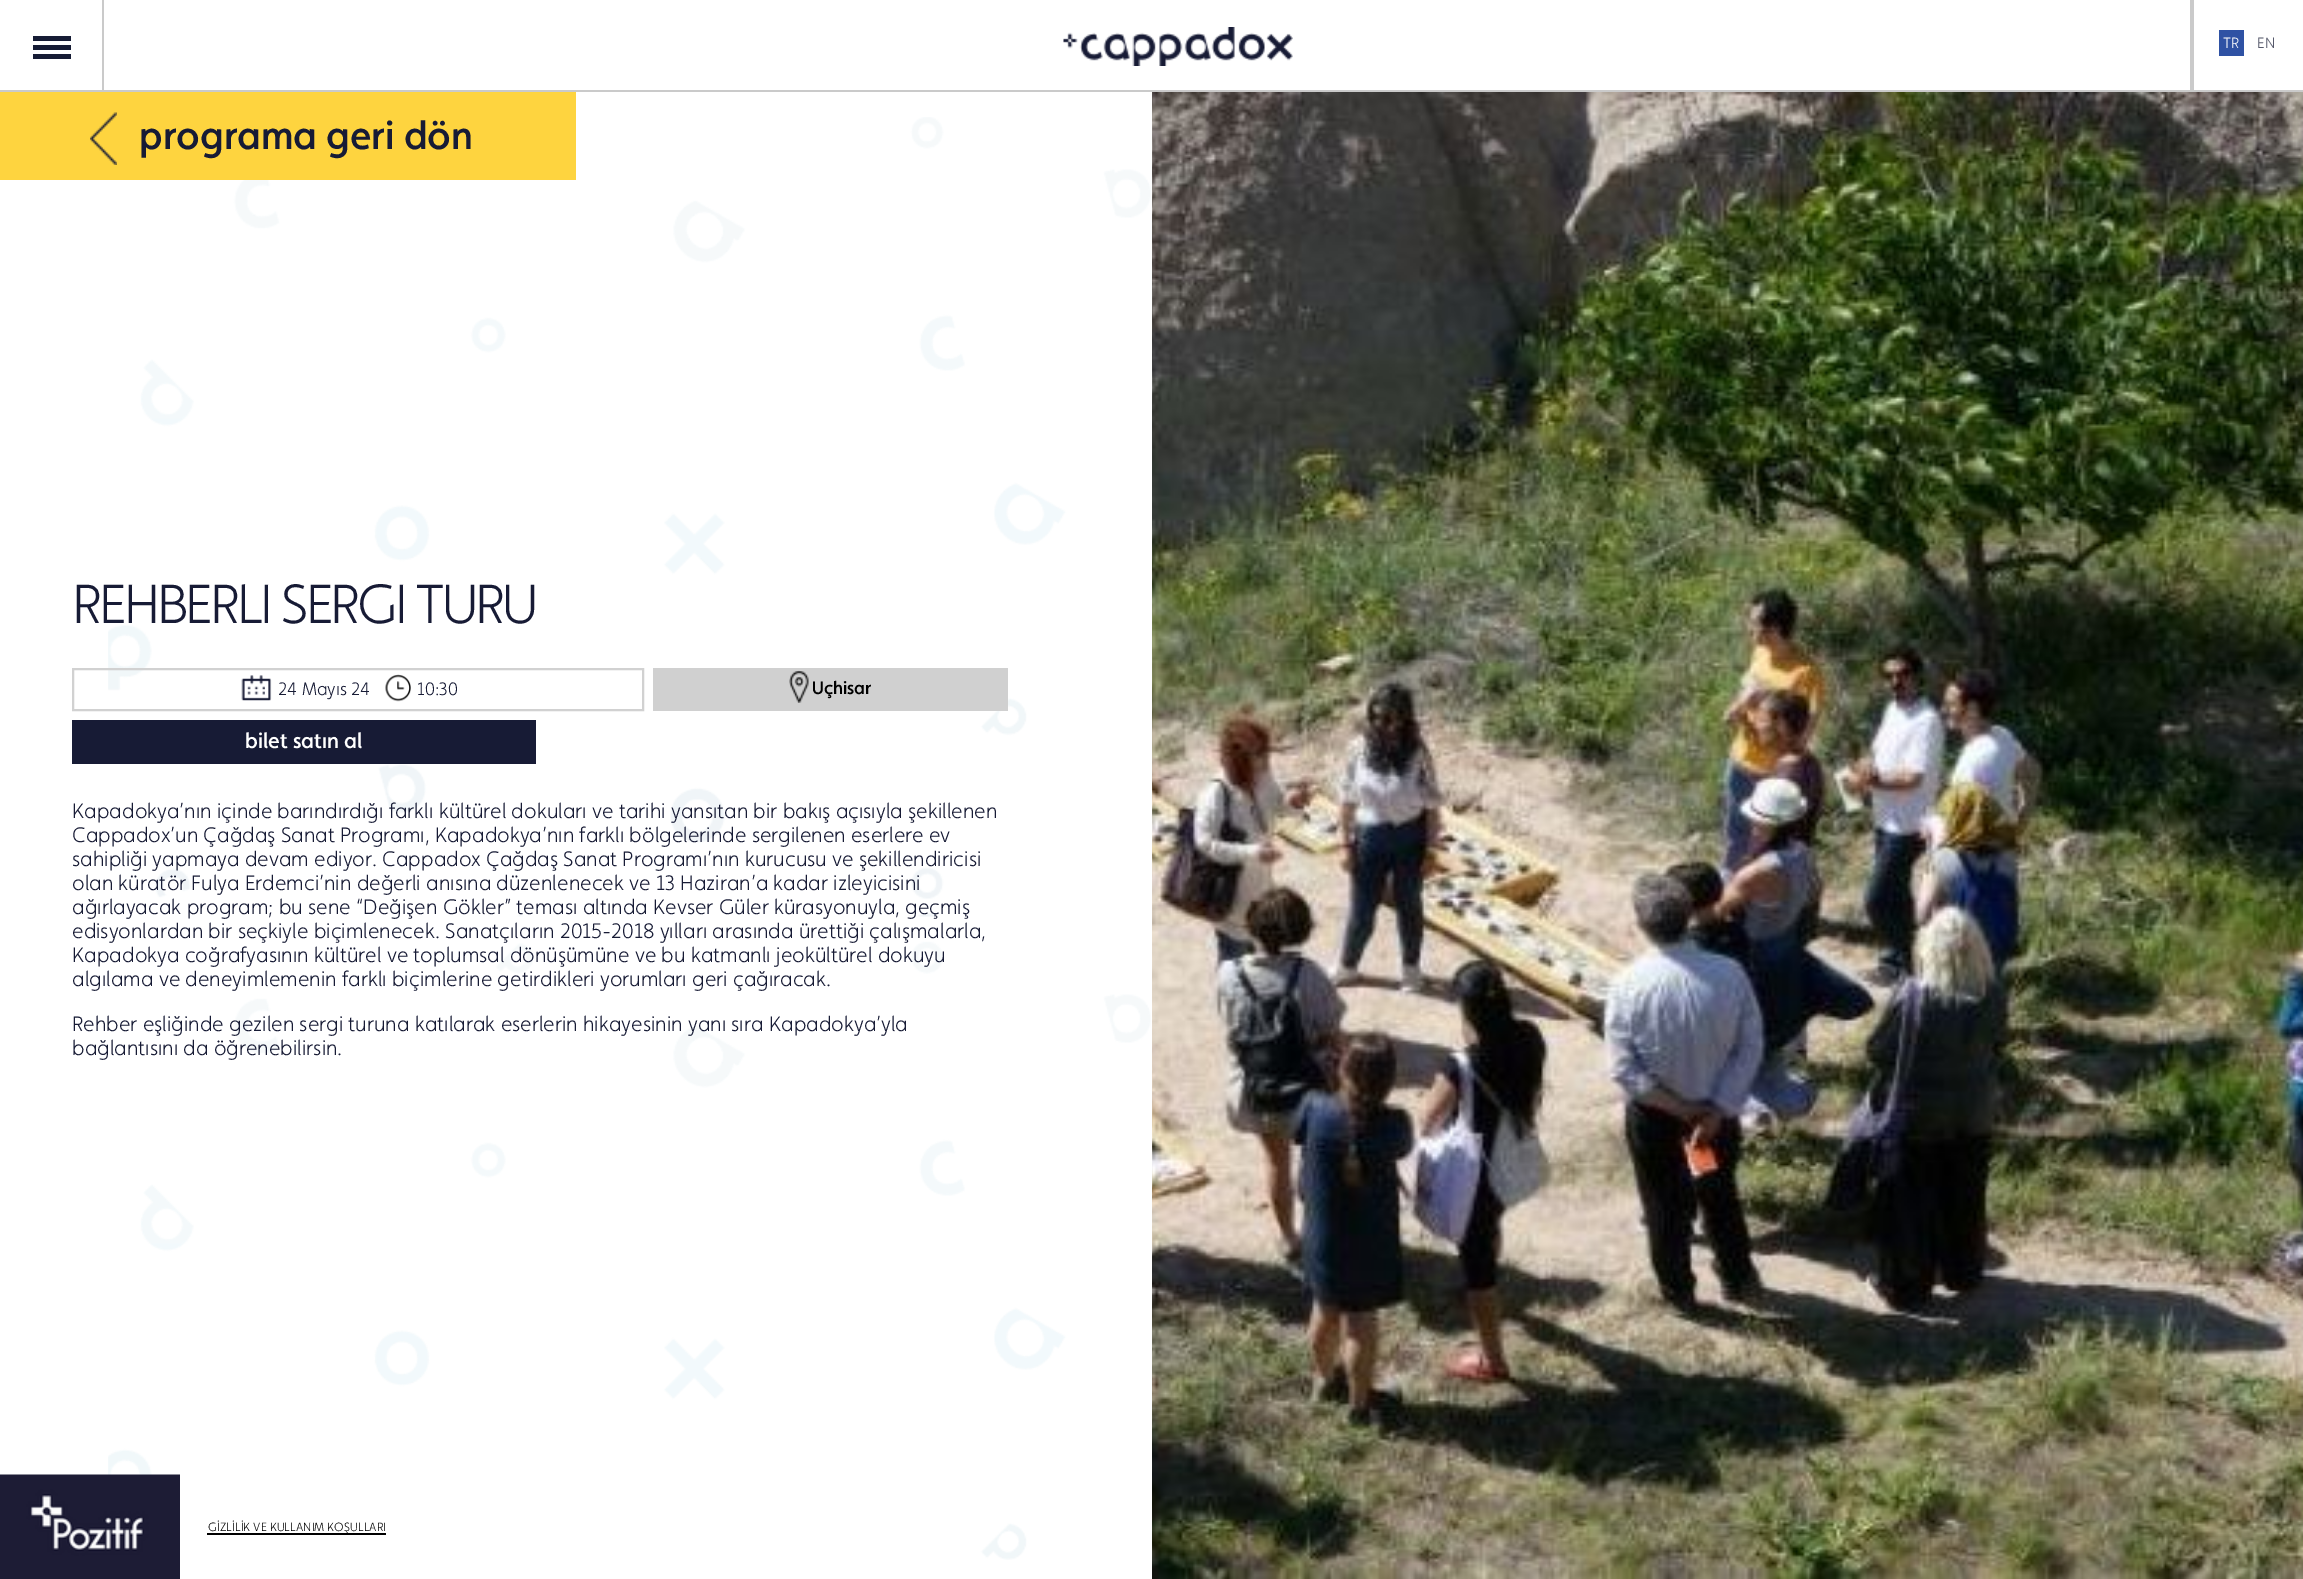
%!PS-Adobe-3.0
%%BoundingBox: 0 0 2303 1579
%%LanguageLevel: 3
%%Pages: 1
%%EndComments
%%BeginProlog
/drawimage { 5 dict begin { /h /w /y /x /name } { exch def } forall
  gsave x y translate w h scale
  w h 8 [w 0 0 h 0 0] name (r) file false 3 colorimage grestore end } def
%%EndProlog
%%BeginSetup
<< /PageSize [2303 1579] >> setpagedevice
%%EndSetup
%%Page: 1 1
0 1579 translate 1 -1 scale
4 setmiterlimit
1 setgray
0 0 2303 1579 rectfill
0.086 0.11 0.208 setrgbcolor
33 36 38 5 rectfill
33 45 38 5 rectfill
33 54 38 5 rectfill
0.792 setgray
0 90 2303 2 rectfill
102 0 2 92 rectfill
(images/1.raw) 1063 27 230 39 drawimage
2190 0 4 92 rectfill
0.184 0.322 0.643 setrgbcolor
2219 30 25 26 rectfill
(images/2.raw) 108 117 1043 1443 drawimage
0.996 0.831 0.247 setrgbcolor
0 92 576 88 rectfill
(images/3.raw) 90 112 27 53 drawimage
0.82 setgray
2 setlinewidth
73 669 570 41 rectstroke
(images/4.raw) 241 675 31 26 drawimage
(images/5.raw) 385 674 26 28 drawimage
0.816 setgray
653 668 355 43 rectfill
(images/6.raw) 789 670 20 33 drawimage
0.09 0.106 0.208 setrgbcolor
72 720 464 44 rectfill
(images/7.raw) 1152 92 1151 1487 drawimage
(images/8.raw) 0 1474 180 105 drawimage
0 setgray
207 1533 179 2 rectfill
/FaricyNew-Light [15 0 0 -15 0 0] selectfont
1 setgray
2223 48 moveto (TR) show
0.337 0.349 0.42 setrgbcolor
2257 48 moveto (EN) show
/FaricyNew-Medium [39.5 0 0 -39.5 0 0] selectfont
0.09 0.106 0.208 setrgbcolor
139 149 moveto (programa geri dön) show
/FaricyNew-Light [55.25 0 0 -55.25 0 0] selectfont
72 623 moveto -3 0 (REHBERLI SERGI TURU) ashow
/FaricyNew-Light [18 0 0 -18 0 0] selectfont
278 695 moveto (24 Mayıs 24) show
417 695 moveto (10:30) show
/FaricyNew-Medium [18 0 0 -18 0 0] selectfont
0 setgray
812 694 moveto (Uçhisar) show
/FaricyNew-Medium [21.5 0 0 -21.5 0 0] selectfont
1 setgray
245 748 moveto (bilet satın al) show
/FaricyNew-Light [21 0 0 -21 0 0] selectfont
0.09 0.106 0.208 setrgbcolor
72 818 moveto (Kapadokya’nın içinde barındırdığı farklı kültürel dokuları ve tarihi yansıtan bir bakış açısıyla şekillenen) show
72 842 moveto (Cappadox’un Çağdaş Sanat Programı, Kapadokya’nın farklı bölgelerinde sergilenen eserlere ev) show
72 866 moveto (sahipliği yapmaya devam ediyor. Cappadox Çağdaş Sanat Programı’nın kurucusu ve şekillendiricisi) show
72 890 moveto (olan küratör Fulya Erdemci’nin değerli anısına düzenlenecek ve 13 Haziran’a kadar izleyicisini) show
72 914 moveto (ağırlayacak program; bu sene “Değişen Gökler” teması altında Kevser Güler kürasyonuyla, geçmiş) show
72 938 moveto (edisyonlardan bir seçkiyle biçimlenecek. Sanatçıların 2015-2018 yılları arasında ürettiği çalışmalarla,) show
72 962 moveto (Kapadokya coğrafyasının kültürel ve toplumsal dönüşümüne ve bu katmanlı jeokültürel dokuyu) show
72 986 moveto (algılama ve deneyimlemenin farklı biçimlerine getirdikleri yorumları geri çağıracak.) show
72 1031 moveto (Rehber eşliğinde gezilen sergi turuna katılarak eserlerin hikayesinin yanı sıra Kapadokya’yla) show
72 1055 moveto (bağlantısını da öğrenebilirsin.) show
/FaricyNew-Light [12 0 0 -12 0 0] selectfont
0 setgray
208 1531 moveto (GİZLİLİK VE KULLANIM KOŞULLARI) show
showpage
%%EOF
